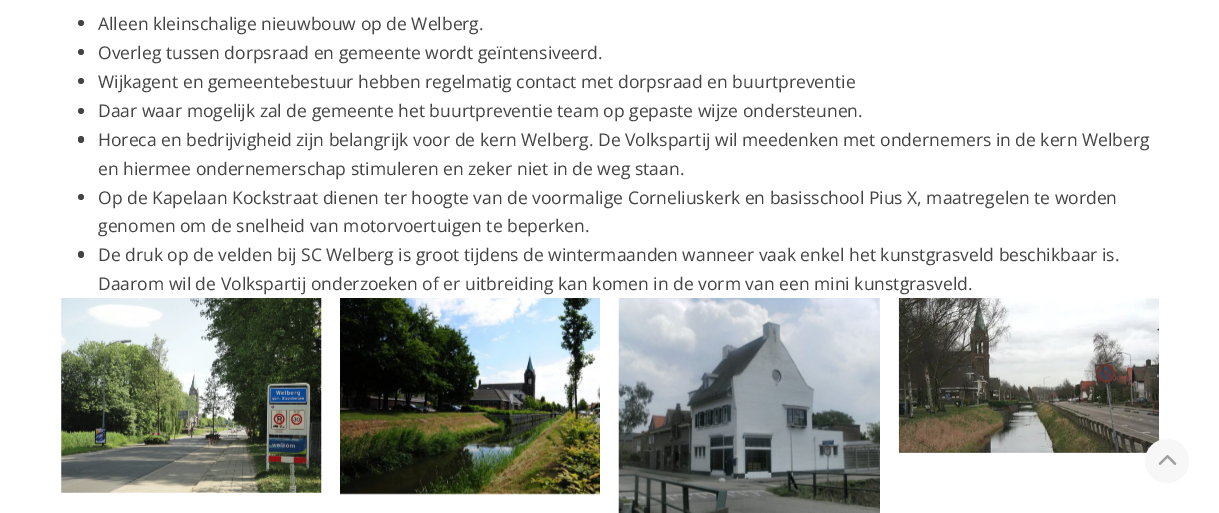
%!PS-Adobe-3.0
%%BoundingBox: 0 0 1219 513
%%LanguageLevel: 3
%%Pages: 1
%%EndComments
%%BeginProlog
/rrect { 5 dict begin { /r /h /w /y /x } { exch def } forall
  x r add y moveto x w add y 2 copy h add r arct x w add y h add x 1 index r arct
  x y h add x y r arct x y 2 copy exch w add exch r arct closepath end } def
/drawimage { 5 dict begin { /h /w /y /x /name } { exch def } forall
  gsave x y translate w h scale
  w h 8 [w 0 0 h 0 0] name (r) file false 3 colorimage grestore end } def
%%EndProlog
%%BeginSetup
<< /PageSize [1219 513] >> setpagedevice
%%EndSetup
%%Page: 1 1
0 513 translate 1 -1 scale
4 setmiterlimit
1 setgray
0 0 1219 513 rectfill
0.267 setgray
newpath 81 23 3 0 360 arc closepath fill
newpath 81 52 3 0 360 arc closepath fill
newpath 81 81 3 0 360 arc closepath fill
newpath 81 111 3 0 360 arc closepath fill
78 136 6 7 3 rrect fill
newpath 81 197 3 0 360 arc closepath fill
78 251 6 7 3 rrect fill
(images/1.raw) 61 298 261 195 drawimage
(images/2.raw) 340 298 260 197 drawimage
(images/3.raw) 618 298 262 215 drawimage
(images/4.raw) 898 298 261 155 drawimage
0.969 setgray
newpath 1167 461 22 0 360 arc closepath fill
(images/5.raw) 1158 455 19 10 drawimage
/OpenSans-Regular [17.5 0 0 -17.5 0 0] selectfont
0.267 setgray
98 30 moveto (Alleen kleinschalige nieuwbouw op de Welberg.) show
98 59 moveto (Overleg tussen dorpsraad en gemeente wordt geïntensiveerd.) show
98 88 moveto (Wijkagent en gemeentebestuur hebben regelmatig contact met dorpsraad en buurtpreventie) show
98 117 moveto (Daar waar mogelijk zal de gemeente het buurtpreventie team op gepaste wijze ondersteunen.) show
98 146 moveto (Horeca en bedrijvigheid zijn belangrijk voor de kern Welberg. De Volkspartij wil meedenken met ondernemers in de kern Welberg) show
98 175 moveto (en hiermee ondernemerschap stimuleren en zeker niet in de weg staan.) show
98 204 moveto (Op de Kapelaan Kockstraat dienen ter hoogte van de voormalige Corneliuskerk en basisschool Pius X, maatregelen te worden) show
98 232 moveto (genomen om de snelheid van motorvoertuigen te beperken.) show
98 261 moveto (De druk op de velden bij SC Welberg is groot tijdens de wintermaanden wanneer vaak enkel het kunstgrasveld beschikbaar is.) show
98 290 moveto (Daarom wil de Volkspartij onderzoeken of er uitbreiding kan komen in de vorm van een mini kunstgrasveld.) show
showpage
%%EOF
